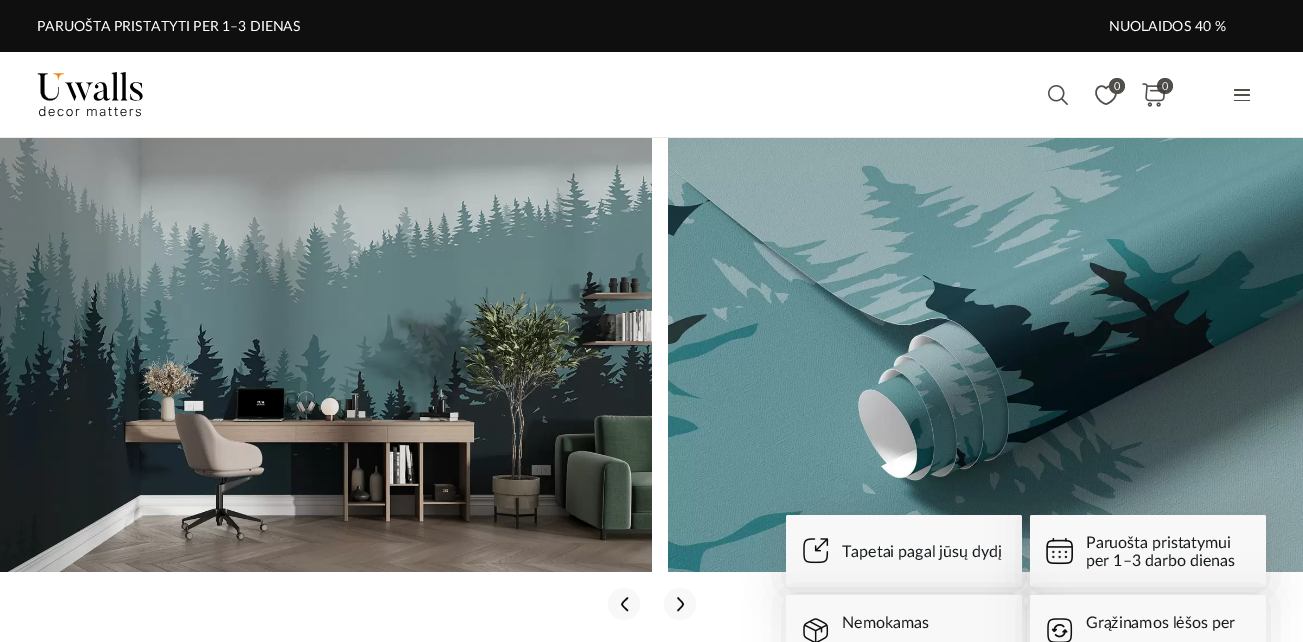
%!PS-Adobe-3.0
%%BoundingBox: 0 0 1303 642
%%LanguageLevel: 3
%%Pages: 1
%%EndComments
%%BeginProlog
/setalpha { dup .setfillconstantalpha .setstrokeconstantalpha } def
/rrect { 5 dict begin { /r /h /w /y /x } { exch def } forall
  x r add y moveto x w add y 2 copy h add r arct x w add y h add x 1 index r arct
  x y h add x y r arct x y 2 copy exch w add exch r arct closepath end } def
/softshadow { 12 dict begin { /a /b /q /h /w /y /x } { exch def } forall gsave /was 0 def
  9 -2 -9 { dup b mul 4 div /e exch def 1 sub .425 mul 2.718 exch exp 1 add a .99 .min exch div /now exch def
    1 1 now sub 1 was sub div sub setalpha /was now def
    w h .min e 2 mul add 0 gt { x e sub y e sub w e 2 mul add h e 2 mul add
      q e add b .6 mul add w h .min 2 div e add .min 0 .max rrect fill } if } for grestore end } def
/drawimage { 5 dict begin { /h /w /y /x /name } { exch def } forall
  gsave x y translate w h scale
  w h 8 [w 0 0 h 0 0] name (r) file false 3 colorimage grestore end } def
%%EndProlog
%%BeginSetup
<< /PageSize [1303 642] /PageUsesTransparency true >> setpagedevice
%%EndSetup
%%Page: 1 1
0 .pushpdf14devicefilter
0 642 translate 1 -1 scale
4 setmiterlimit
1 setgray
0 0 1303 642 rectfill
0.059 setgray
0 0 1303 52 rectfill
0.929 0.922 0.91 setrgbcolor
0 137 1303 1 rectfill
(images/1.raw) 37 72 106 45 drawimage
(images/2.raw) 1048 85 20 20 drawimage
0.314 0.31 0.29 setrgbcolor
1.5 setlinewidth
1 setlinecap
1 setlinejoin
newpath 1106.5 104 moveto 1105 104.5 1102.5 102.5 1101 101.5 curveto 1089.5 92 1100.5 81 1106 88.5 curveto 1110.5 82 1120.5 89 1114 98.5 curveto 1112 101 1109.5 103 1106.5 104 curveto closepath stroke
newpath 1117 86 8 0 360 arc closepath fill
(images/3.raw) 1142 83 24 24 drawimage
0.9 setalpha
0.239 0.231 0.212 setrgbcolor
newpath 1165 86 8 0 360 arc closepath fill
1 setalpha
0.314 0.31 0.29 setrgbcolor
1234 89 16 2 1 rrect fill
1234 94 16 2 1 rrect fill
1234 100 16 1 0.5 rrect fill
(images/4.raw) 0 138 652 434 drawimage
(images/5.raw) 668 138 635 434 drawimage
0.973 setgray
newpath 624 604 16 0 360 arc closepath fill
newpath 680 604 16 0 360 arc closepath fill
0.059 setgray
newpath 627.5 610.5 moveto 620 603 620 605.5 627.5 598 curveto 678 610.5 moveto 685 603 685 605.5 678 598 curveto stroke
0.369 setgray
786 517 236 72 2 20 0.2 softshadow
0.973 setgray
786 515 236 72 2 rrect fill
0.369 setgray
1030 517 236 72 2 20 0.2 softshadow
0.973 setgray
1030 515 236 72 2 rrect fill
0.369 setgray
786 597 236 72 2 20 0.2 softshadow
(images/6.raw) 803 538 26 26 drawimage
0.973 setgray
786 595 236 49 2 rrect fill
0.369 setgray
1030 597 236 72 2 20 0.2 softshadow
(images/7.raw) 1046 537 27 28 drawimage
(images/8.raw) 803 618 26 24 drawimage
0.973 setgray
1030 595 236 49 2 rrect fill
(images/9.raw) 1047 618 26 24 drawimage
/Lato-Regular [14 0 0 -14 0 0] selectfont
1 setgray
37 31 moveto (PARUOŠTA PRISTATYTI PER 1–3 DIENAS) show
1109 31 moveto (NUOLAIDOS 40 %) show
/Lato-Regular [11 0 0 -11 0 0] selectfont
1114 90 moveto (0) show
0.929 setgray
1162 90 moveto (0) show
/Lato-Regular [16 0 0 -16 0 0] selectfont
0.09 0.11 0.122 setrgbcolor
842 557 moveto (Tapetai pagal jūsų dydį) show
1086 548 moveto (Paruošta pristatymui) show
1086 566 moveto (per 1–3 darbo dienas) show
842 628 moveto (Nemokamas) show
1086 628 moveto (Grąžinamos lėšos per) show
.poppdf14devicefilter showpage
%%EOF
